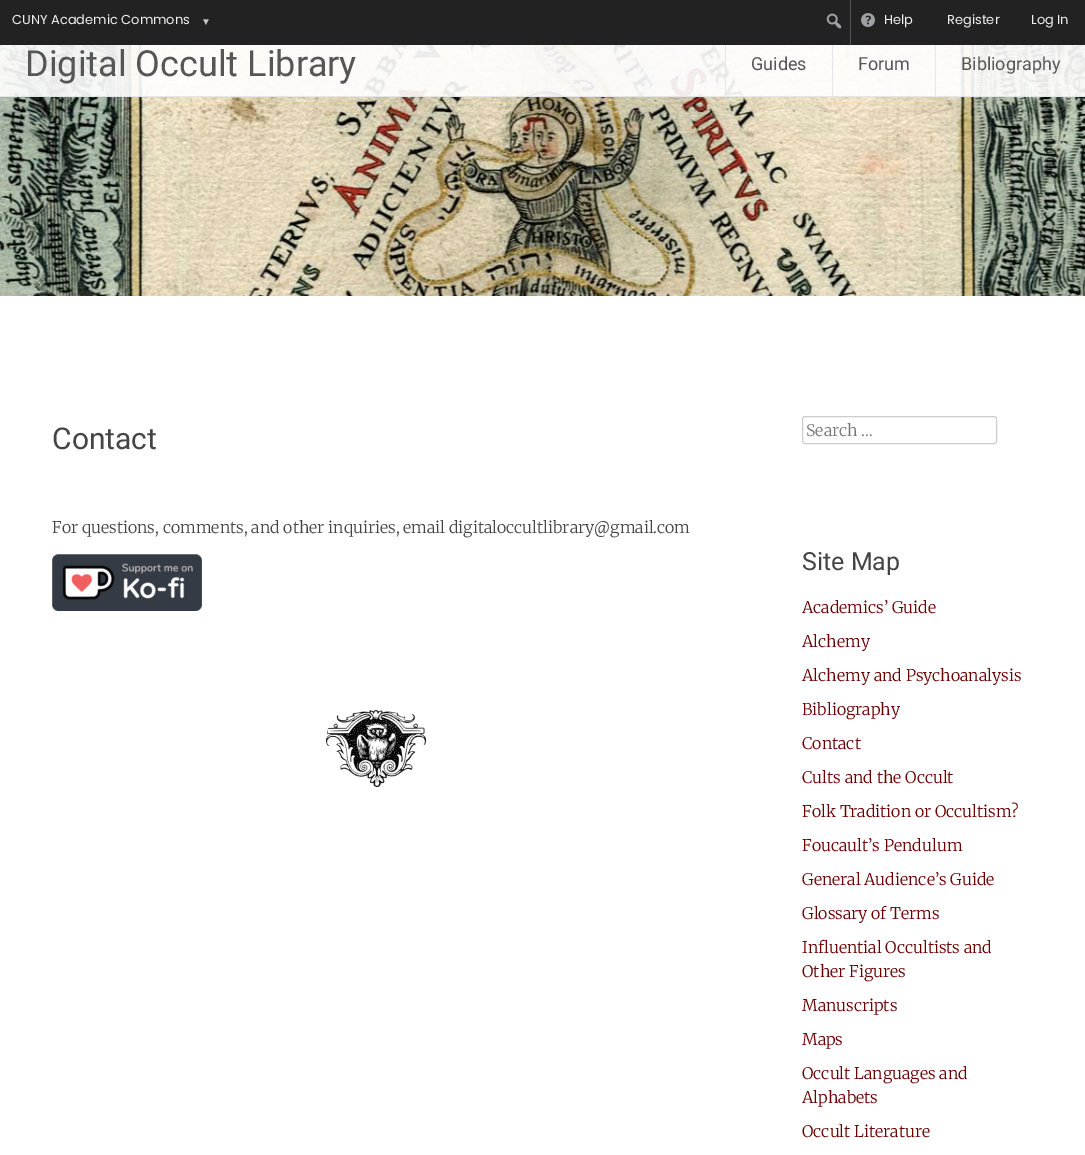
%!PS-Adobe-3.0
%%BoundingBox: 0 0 1085 1155
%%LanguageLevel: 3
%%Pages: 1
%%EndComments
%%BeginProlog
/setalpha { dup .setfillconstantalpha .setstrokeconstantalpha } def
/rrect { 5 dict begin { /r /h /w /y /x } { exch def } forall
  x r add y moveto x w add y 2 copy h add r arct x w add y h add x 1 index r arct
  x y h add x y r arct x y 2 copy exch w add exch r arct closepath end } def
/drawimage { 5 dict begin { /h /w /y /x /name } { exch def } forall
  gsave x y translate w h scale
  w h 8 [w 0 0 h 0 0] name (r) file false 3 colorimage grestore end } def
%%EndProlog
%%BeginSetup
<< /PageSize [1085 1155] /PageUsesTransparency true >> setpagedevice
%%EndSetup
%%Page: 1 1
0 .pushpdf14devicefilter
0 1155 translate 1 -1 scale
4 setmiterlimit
1 setgray
0 0 1085 1155 rectfill
0.133 setgray
0 0 1085 45 rectfill
(images/1.raw) 826 13 16 16 drawimage
0.333 setgray
850 0 1 45 rectfill
(images/2.raw) 861 13 14 14 drawimage
(images/3.raw) 0 45 1085 251 drawimage
0.9 setalpha
1 setgray
0 45 1085 52 rectfill
0.882 0.894 0.902 setrgbcolor
0 96 1085 1 rectfill
725 45 1 51 rectfill
832 45 1 51 rectfill
935 45 1 51 rectfill
1 setalpha
(images/4.raw) 52 554 150 57 drawimage
(images/5.raw) 326 710 100 77 drawimage
0.8 setgray
802.5 416.5 194 27 2.5 rrect stroke
/Poppins-Regular [13 0 0 -13 0 0] selectfont
0.941 0.941 0.945 setrgbcolor
12 24 moveto (CUNY Academic Commons) show
/LiberationSans-Regular [10 0 0 -10 0 0] selectfont
0.765 0.769 0.78 setrgbcolor
201 25 moveto (▼) show
/Poppins-Regular [13 0 0 -13 0 0] selectfont
0.941 0.941 0.945 setrgbcolor
947 24 moveto (Register) show
1031 24 moveto (Log In) show
884 24 moveto (Help) show
/Roboto-Regular [36 0 0 -36 0 0] selectfont
0.337 setgray
25 76 moveto (Digital Occult Library) show
/Roboto-Regular [18 0 0 -18 0 0] selectfont
751 70 moveto (Guides) show
858 70 moveto (Forum) show
961 70 moveto (Bibliography) show
/Roboto-Regular [30 0 0 -30 0 0] selectfont
0.267 setgray
52 449 moveto (Contact) show
/Merriweather-Light [16 0 0 -16 0 0] selectfont
52 533 moveto (For questions, comments, and other inquiries, email digitaloccultlibrary@gmail.com) show
0.459 setgray
806 436 moveto (Search …) show
/Roboto-Regular [25 0 0 -25 0 0] selectfont
0.267 setgray
802 570 moveto (Site Map) show
/Merriweather-Light [16 0 0 -16 0 0] selectfont
0.408 0 0 setrgbcolor
802 613 moveto (Academics’ Guide) show
802 647 moveto (Alchemy) show
802 681 moveto (Alchemy and Psychoanalysis) show
802 715 moveto (Bibliography) show
802 749 moveto (Contact) show
802 783 moveto (Cults and the Occult) show
802 817 moveto (Folk Tradition or Occultism?) show
802 851 moveto (Foucault’s Pendulum) show
802 885 moveto (General Audience’s Guide) show
802 919 moveto (Glossary of Terms) show
802 953 moveto (Influential Occultists and) show
802 977 moveto (Other Figures) show
802 1011 moveto (Manuscripts) show
802 1045 moveto (Maps) show
802 1079 moveto (Occult Languages and) show
802 1103 moveto (Alphabets) show
802 1137 moveto (Occult Literature) show
.poppdf14devicefilter showpage
%%EOF
